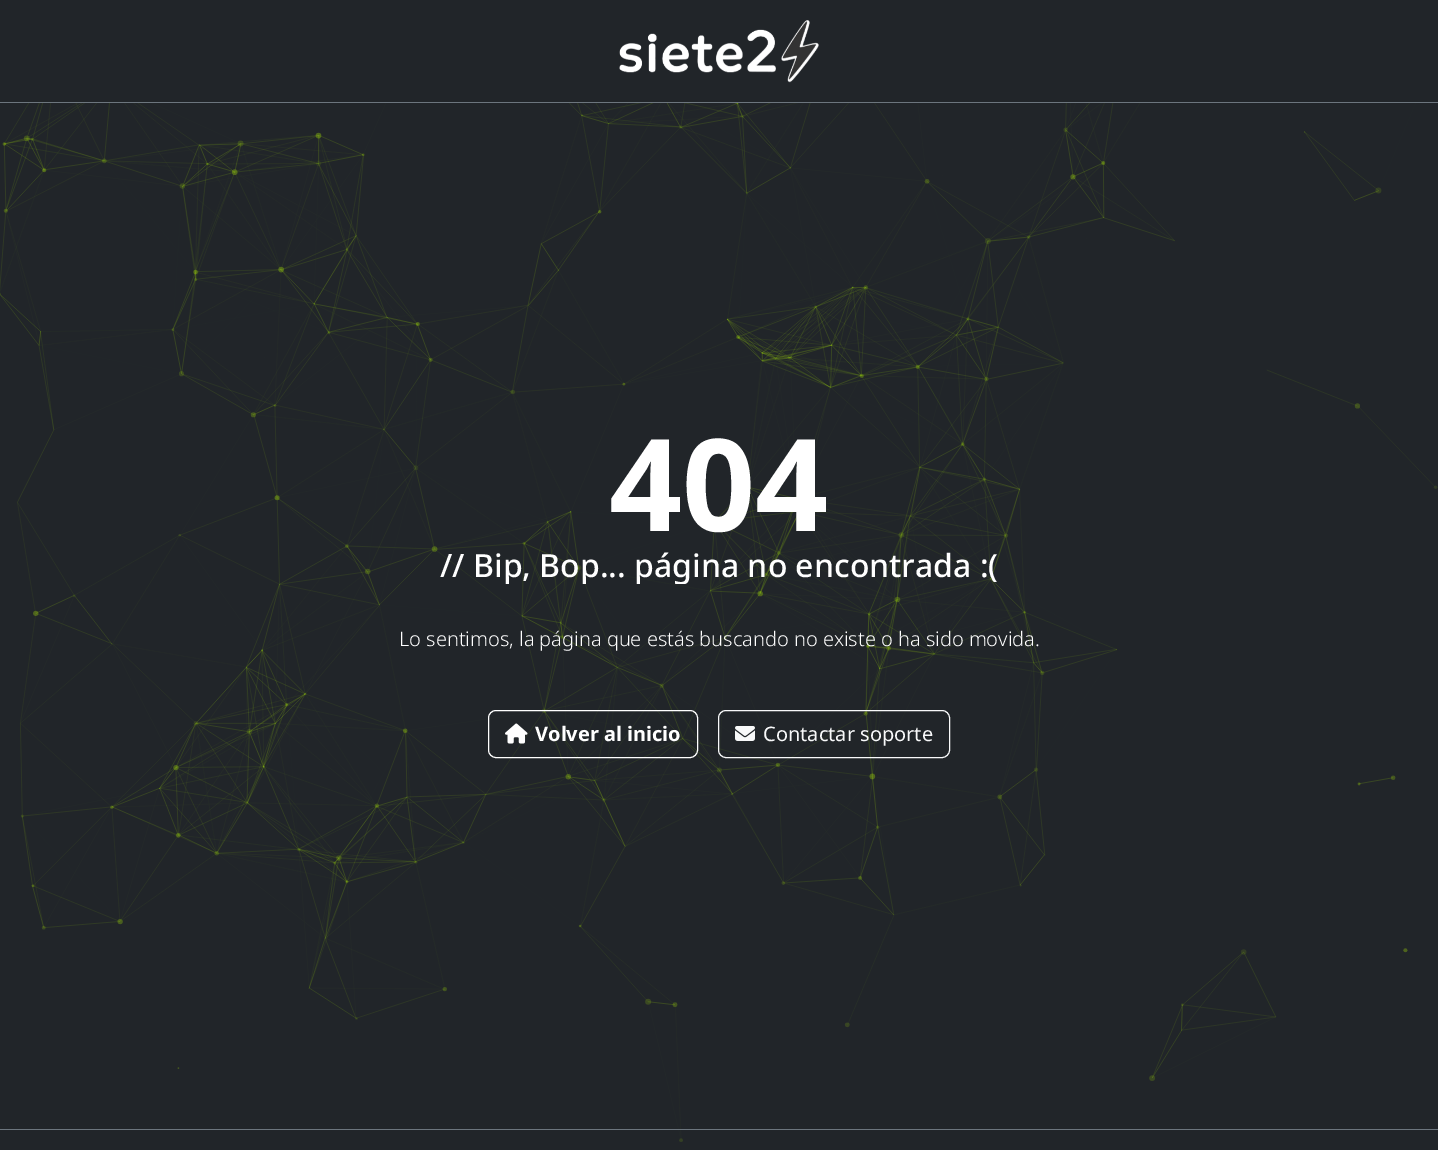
%!PS-Adobe-3.0
%%BoundingBox: 0 0 1438 1150
%%LanguageLevel: 3
%%Pages: 1
%%EndComments
%%BeginProlog
/rrect { 5 dict begin { /r /h /w /y /x } { exch def } forall
  x r add y moveto x w add y 2 copy h add r arct x w add y h add x 1 index r arct
  x y h add x y r arct x y 2 copy exch w add exch r arct closepath end } def
/drawimage { 5 dict begin { /h /w /y /x /name } { exch def } forall
  gsave x y translate w h scale
  w h 8 [w 0 0 h 0 0] name (r) file false 3 colorimage grestore end } def
%%EndProlog
%%BeginSetup
<< /PageSize [1438 1150] >> setpagedevice
%%EndSetup
%%Page: 1 1
0 1150 translate 1 -1 scale
4 setmiterlimit
0.129 0.145 0.161 setrgbcolor
0 0 1438 1150 rectfill
0.424 0.459 0.49 setrgbcolor
0 102 1438 1 rectfill
(images/1.raw) 619 20 200 63 drawimage
(images/2.raw) 0 103 1438 1039 drawimage
1 setgray
488.5 710.5 209 47 7.5 rrect stroke
(images/3.raw) 505 723 23 21 drawimage
0.973 0.976 0.98 setrgbcolor
718.5 710.5 231 47 7.5 rrect stroke
(images/4.raw) 735 726 20 15 drawimage
0.424 0.459 0.49 setrgbcolor
0 1129 1438 1 rectfill
/NotoSans-Bold [128 0 0 -128 0 0] selectfont
1 setgray
609 531 moveto (404) show
gsave
440 546 558 38 rectclip
/NotoSans-Medium [32 0 0 -32 0 0] selectfont
440 577 moveto (// Bip, Bop... página no encontrada :\() show
grestore
/NotoSans-Light [20 0 0 -20 0 0] selectfont
399 646 moveto (Lo sentimos, la página que estás buscando no existe o ha sido movida.) show
/NotoSans-Bold [20 0 0 -20 0 0] selectfont
535 741 moveto (Volver al inicio) show
/NotoSans-Regular [20 0 0 -20 0 0] selectfont
0.973 0.976 0.98 setrgbcolor
763 741 moveto (Contactar soporte) show
showpage
%%EOF
